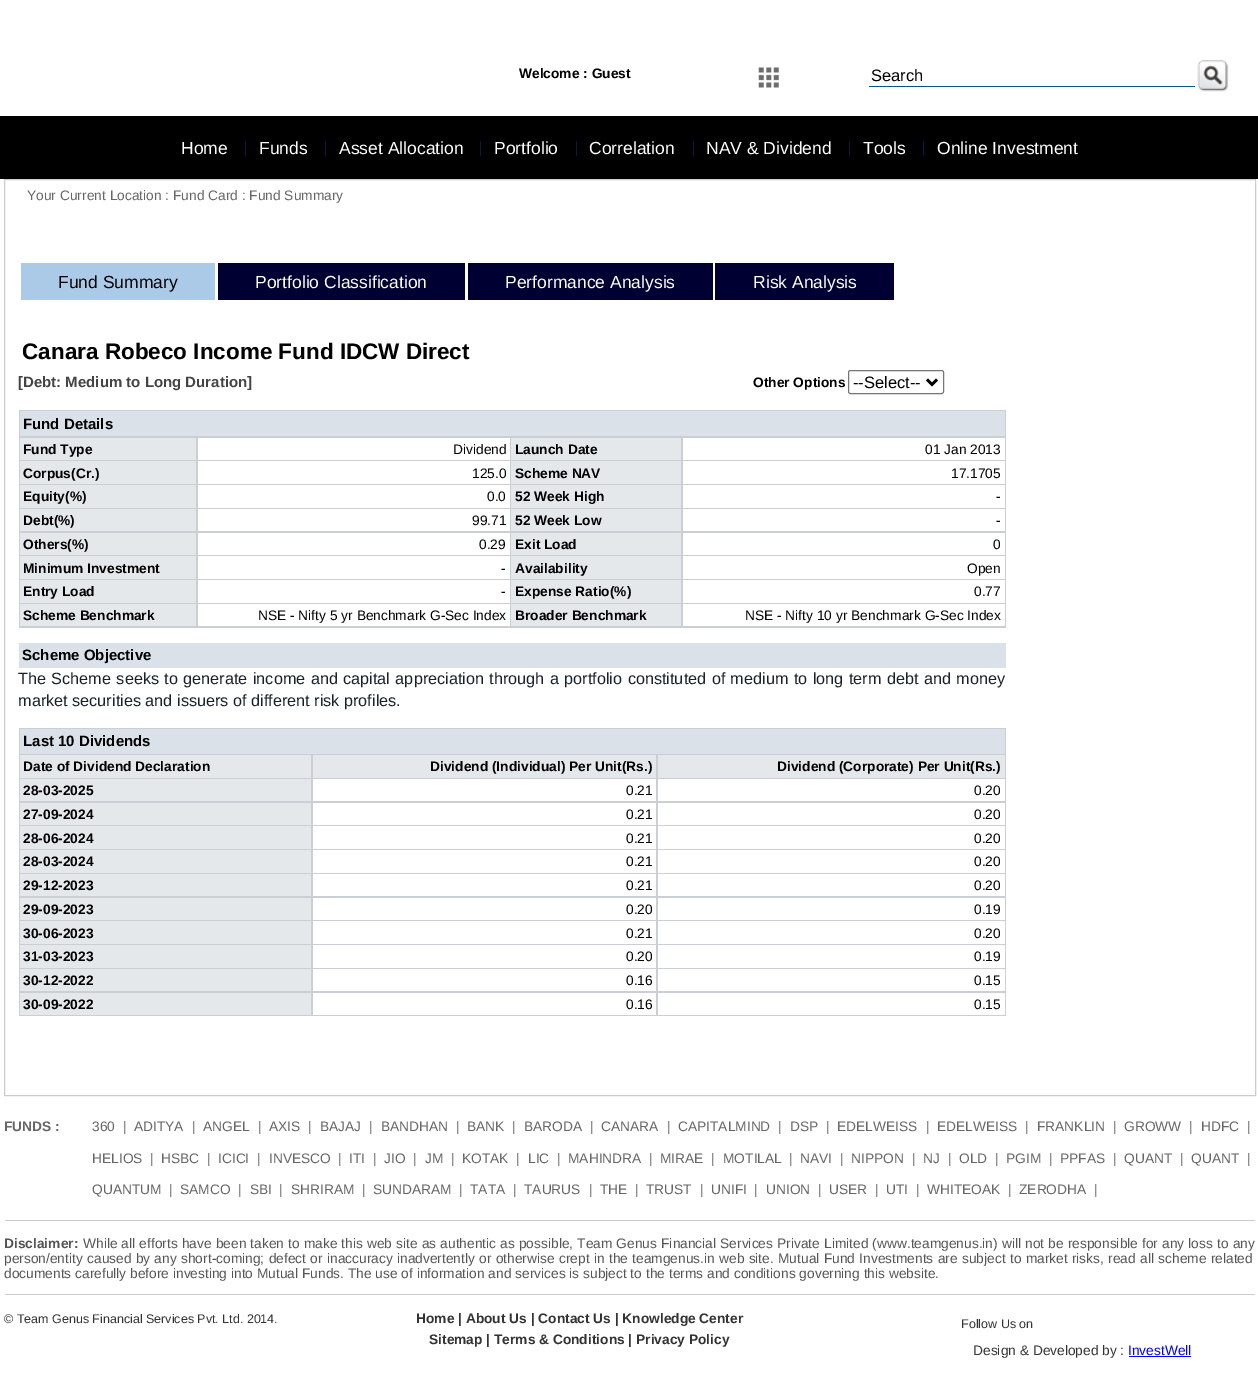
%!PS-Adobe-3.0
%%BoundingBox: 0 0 1258 1388
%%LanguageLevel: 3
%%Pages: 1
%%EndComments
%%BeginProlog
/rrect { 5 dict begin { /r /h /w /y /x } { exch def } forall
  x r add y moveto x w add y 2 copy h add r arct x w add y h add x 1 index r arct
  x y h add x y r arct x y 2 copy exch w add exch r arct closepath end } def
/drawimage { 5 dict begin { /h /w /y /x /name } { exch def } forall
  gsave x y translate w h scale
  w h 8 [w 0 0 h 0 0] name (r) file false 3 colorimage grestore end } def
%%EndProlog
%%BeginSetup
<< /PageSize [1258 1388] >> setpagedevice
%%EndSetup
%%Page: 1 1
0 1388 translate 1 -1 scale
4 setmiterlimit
1 setgray
0 0 1258 1388 rectfill
(images/1.raw) 758 67 21 21 drawimage
0.024 0.341 0.525 setrgbcolor
869 86 326 1 rectfill
(images/2.raw) 1197 60 32 32 drawimage
0 setgray
0 116 1258 63 rectfill
0.055 0.09 0.259 setrgbcolor
245 141 1 15 rectfill
325 141 1 15 rectfill
480 141 1 15 rectfill
576 141 1 15 rectfill
693 141 1 15 rectfill
849 141 1 15 rectfill
923 141 1 15 rectfill
0.8 setgray
4.5 179.5 1251 916 rectstroke
0.671 0.792 0.906 setrgbcolor
21 263 194 37 rectfill
0 0 0.2 setrgbcolor
218 263 247 37 rectfill
468 263 245 37 rectfill
715 263 179 37 rectfill
0.463 setgray
848.5 370.5 95 23 2 rrect stroke
0 setgray
2.5 setlinewidth
newpath 927 379.5 moveto 932 384.5 lineto 937 379.5 lineto stroke
0.796 0.808 0.824 setrgbcolor
19 410 987 218 rectfill
0.855 0.882 0.914 setrgbcolor
20 411 985 25 rectfill
0.898 0.91 0.922 setrgbcolor
20 438 176 22 rectfill
1 setgray
198 438 312 22 rectfill
0.898 0.91 0.922 setrgbcolor
511 438 170 22 rectfill
1 setgray
683 438 322 22 rectfill
0.898 0.91 0.922 setrgbcolor
20 461 176 23 rectfill
1 setgray
198 461 312 23 rectfill
0.898 0.91 0.922 setrgbcolor
511 461 170 23 rectfill
1 setgray
683 461 322 23 rectfill
0.898 0.91 0.922 setrgbcolor
20 485 176 23 rectfill
1 setgray
198 485 312 23 rectfill
0.898 0.91 0.922 setrgbcolor
511 485 170 23 rectfill
1 setgray
683 485 322 23 rectfill
0.898 0.91 0.922 setrgbcolor
20 509 176 22 rectfill
1 setgray
198 509 312 22 rectfill
0.898 0.91 0.922 setrgbcolor
511 509 170 22 rectfill
1 setgray
683 509 322 22 rectfill
0.898 0.91 0.922 setrgbcolor
20 533 176 22 rectfill
1 setgray
198 533 312 22 rectfill
0.898 0.91 0.922 setrgbcolor
511 533 170 22 rectfill
1 setgray
683 533 322 22 rectfill
0.898 0.91 0.922 setrgbcolor
20 556 176 23 rectfill
1 setgray
198 556 312 23 rectfill
0.898 0.91 0.922 setrgbcolor
511 556 170 23 rectfill
1 setgray
683 556 322 23 rectfill
0.898 0.91 0.922 setrgbcolor
20 580 176 23 rectfill
1 setgray
198 580 312 23 rectfill
0.898 0.91 0.922 setrgbcolor
511 580 170 23 rectfill
1 setgray
683 580 322 23 rectfill
0.898 0.91 0.922 setrgbcolor
20 604 176 22 rectfill
1 setgray
198 604 312 22 rectfill
0.898 0.91 0.922 setrgbcolor
511 604 170 22 rectfill
1 setgray
683 604 322 22 rectfill
0.855 0.882 0.914 setrgbcolor
19 643 987 25 rectfill
0.796 0.808 0.824 setrgbcolor
19 728 987 288 rectfill
0.855 0.882 0.914 setrgbcolor
20 729 985 25 rectfill
0.898 0.91 0.922 setrgbcolor
20 755 291 23 rectfill
313 755 343 23 rectfill
658 755 347 23 rectfill
20 779 291 22 rectfill
1 setgray
313 779 343 22 rectfill
658 779 347 22 rectfill
0.898 0.91 0.922 setrgbcolor
20 803 291 22 rectfill
1 setgray
313 803 343 22 rectfill
658 803 347 22 rectfill
0.898 0.91 0.922 setrgbcolor
20 826 291 23 rectfill
1 setgray
313 826 343 23 rectfill
658 826 347 23 rectfill
0.898 0.91 0.922 setrgbcolor
20 850 291 23 rectfill
1 setgray
313 850 343 23 rectfill
658 850 347 23 rectfill
0.898 0.91 0.922 setrgbcolor
20 874 291 22 rectfill
1 setgray
313 874 343 22 rectfill
658 874 347 22 rectfill
0.898 0.91 0.922 setrgbcolor
20 898 291 22 rectfill
1 setgray
313 898 343 22 rectfill
658 898 347 22 rectfill
0.898 0.91 0.922 setrgbcolor
20 921 291 23 rectfill
1 setgray
313 921 343 23 rectfill
658 921 347 23 rectfill
0.898 0.91 0.922 setrgbcolor
20 945 291 23 rectfill
1 setgray
313 945 343 23 rectfill
658 945 347 23 rectfill
0.898 0.91 0.922 setrgbcolor
20 969 291 22 rectfill
1 setgray
313 969 343 22 rectfill
658 969 347 22 rectfill
0.898 0.91 0.922 setrgbcolor
20 993 291 22 rectfill
1 setgray
313 993 343 22 rectfill
658 993 347 22 rectfill
0.8 setgray
5 1220 1250 1 rectfill
5 1294 1250 1 rectfill
0 0 0.933 setrgbcolor
1129 1356 62 1 rectfill
/LiberationSans-Bold [13.75 0 0 -13.75 0 0] selectfont
0 setgray
519 78 moveto (Welcome : Guest) show
/LiberationSans-Regular [16.5 0 0 -16.5 0 0] selectfont
871 81 moveto (Search) show
/LiberationSans-Regular [17.5 0 0 -17.5 0 0] selectfont
1 setgray
181 154 moveto (Home) show
259 154 moveto (Funds) show
339 154 moveto (Asset Allocation) show
494 154 moveto (Portfolio) show
589 154 moveto (Correlation) show
706 154 moveto (NAV & Dividend) show
863 154 moveto (Tools) show
937 154 moveto (Online Investment) show
/LiberationSans-Regular [13.75 0 0 -13.75 0 0] selectfont
0.4 setgray
27 200 moveto (Your Current Location : Fund Card : Fund Summary) show
/LiberationSans-Regular [17.5 0 0 -17.5 0 0] selectfont
0 setgray
58 288 moveto (Fund Summary) show
1 setgray
255 288 moveto (Portfolio Classification) show
505 288 moveto (Performance Analysis) show
753 288 moveto (Risk Analysis) show
/LiberationSans-Bold [22.5 0 0 -22.5 0 0] selectfont
0 setgray
22 359 moveto (Canara Robeco Income Fund IDCW Direct) show
/LiberationSans-Bold [15 0 0 -15 0 0] selectfont
0.267 setgray
18 387 moveto ([Debt: Medium to Long Duration]) show
/LiberationSans-Bold [13.75 0 0 -13.75 0 0] selectfont
0 setgray
753 387 moveto (Other Options) show
/LiberationSans-Regular [16.5 0 0 -16.5 0 0] selectfont
853 388 moveto (--Select--) show
/LiberationSans-Bold [15 0 0 -15 0 0] selectfont
23 429 moveto (Fund Details) show
/LiberationSans-Bold [13.75 0 0 -13.75 0 0] selectfont
23 454 moveto (Fund Type) show
/LiberationSans-Regular [13.75 0 0 -13.75 0 0] selectfont
453 454 moveto (Dividend) show
/LiberationSans-Bold [13.75 0 0 -13.75 0 0] selectfont
515 454 moveto (Launch Date) show
/LiberationSans-Regular [13.75 0 0 -13.75 0 0] selectfont
925 454 moveto (01 Jan 2013) show
/LiberationSans-Bold [13.75 0 0 -13.75 0 0] selectfont
23 478 moveto (Corpus\(Cr.\)) show
/LiberationSans-Regular [13.75 0 0 -13.75 0 0] selectfont
472 478 moveto (125.0) show
/LiberationSans-Bold [13.75 0 0 -13.75 0 0] selectfont
515 478 moveto (Scheme NAV) show
/LiberationSans-Regular [13.75 0 0 -13.75 0 0] selectfont
951 478 moveto (17.1705) show
/LiberationSans-Bold [13.75 0 0 -13.75 0 0] selectfont
23 501 moveto (Equity\(%\)) show
/LiberationSans-Regular [13.75 0 0 -13.75 0 0] selectfont
487 501 moveto (0.0) show
/LiberationSans-Bold [13.75 0 0 -13.75 0 0] selectfont
515 501 moveto (52 Week High) show
/LiberationSans-Regular [13.75 0 0 -13.75 0 0] selectfont
996 501 moveto (-) show
/LiberationSans-Bold [13.75 0 0 -13.75 0 0] selectfont
23 525 moveto (Debt\(%\)) show
/LiberationSans-Regular [13.75 0 0 -13.75 0 0] selectfont
472 525 moveto (99.71) show
/LiberationSans-Bold [13.75 0 0 -13.75 0 0] selectfont
515 525 moveto (52 Week Low) show
/LiberationSans-Regular [13.75 0 0 -13.75 0 0] selectfont
996 525 moveto (-) show
/LiberationSans-Bold [13.75 0 0 -13.75 0 0] selectfont
23 549 moveto (Others\(%\)) show
/LiberationSans-Regular [13.75 0 0 -13.75 0 0] selectfont
479 549 moveto (0.29) show
/LiberationSans-Bold [13.75 0 0 -13.75 0 0] selectfont
515 549 moveto (Exit Load) show
/LiberationSans-Regular [13.75 0 0 -13.75 0 0] selectfont
993 549 moveto (0) show
/LiberationSans-Bold [13.75 0 0 -13.75 0 0] selectfont
23 573 moveto (Minimum Investment) show
/LiberationSans-Regular [13.75 0 0 -13.75 0 0] selectfont
501 573 moveto (-) show
/LiberationSans-Bold [13.75 0 0 -13.75 0 0] selectfont
515 573 moveto (Availability) show
/LiberationSans-Regular [13.75 0 0 -13.75 0 0] selectfont
967 573 moveto (Open) show
/LiberationSans-Bold [13.75 0 0 -13.75 0 0] selectfont
23 596 moveto (Entry Load) show
/LiberationSans-Regular [13.75 0 0 -13.75 0 0] selectfont
501 596 moveto (-) show
/LiberationSans-Bold [13.75 0 0 -13.75 0 0] selectfont
515 596 moveto (Expense Ratio\(%\)) show
/LiberationSans-Regular [13.75 0 0 -13.75 0 0] selectfont
974 596 moveto (0.77) show
/LiberationSans-Bold [13.75 0 0 -13.75 0 0] selectfont
23 620 moveto (Scheme Benchmark) show
/LiberationSans-Regular [13.75 0 0 -13.75 0 0] selectfont
258 620 moveto (NSE - Nifty 5 yr Benchmark G-Sec Index) show
/LiberationSans-Bold [13.75 0 0 -13.75 0 0] selectfont
515 620 moveto (Broader Benchmark) show
/LiberationSans-Regular [13.75 0 0 -13.75 0 0] selectfont
745 620 moveto (NSE - Nifty 10 yr Benchmark G-Sec Index) show
/LiberationSans-Bold [15 0 0 -15 0 0] selectfont
22 660 moveto (Scheme Objective) show
/LiberationSans-Regular [16.25 0 0 -16.25 0 0] selectfont
0.098 0.129 0.173 setrgbcolor
18 684 moveto 0.9 0 32 (The Scheme seeks to generate income and capital appreciation through a portfolio constituted of medium to long term debt and money) widthshow
18 706 moveto (market securities and issuers of different risk profiles.) show
/LiberationSans-Bold [15 0 0 -15 0 0] selectfont
0 setgray
23 746 moveto (Last 10 Dividends) show
/LiberationSans-Bold [13.75 0 0 -13.75 0 0] selectfont
23 771 moveto (Date of Dividend Declaration) show
430 771 moveto (Dividend \(Individual\) Per Unit\(Rs.\)) show
777 771 moveto (Dividend \(Corporate\) Per Unit\(Rs.\)) show
23 795 moveto (28-03-2025) show
/LiberationSans-Regular [13.75 0 0 -13.75 0 0] selectfont
626 795 moveto (0.21) show
974 795 moveto (0.20) show
/LiberationSans-Bold [13.75 0 0 -13.75 0 0] selectfont
23 819 moveto (27-09-2024) show
/LiberationSans-Regular [13.75 0 0 -13.75 0 0] selectfont
626 819 moveto (0.21) show
974 819 moveto (0.20) show
/LiberationSans-Bold [13.75 0 0 -13.75 0 0] selectfont
23 843 moveto (28-06-2024) show
/LiberationSans-Regular [13.75 0 0 -13.75 0 0] selectfont
626 843 moveto (0.21) show
974 843 moveto (0.20) show
/LiberationSans-Bold [13.75 0 0 -13.75 0 0] selectfont
23 866 moveto (28-03-2024) show
/LiberationSans-Regular [13.75 0 0 -13.75 0 0] selectfont
626 866 moveto (0.21) show
974 866 moveto (0.20) show
/LiberationSans-Bold [13.75 0 0 -13.75 0 0] selectfont
23 890 moveto (29-12-2023) show
/LiberationSans-Regular [13.75 0 0 -13.75 0 0] selectfont
626 890 moveto (0.21) show
974 890 moveto (0.20) show
/LiberationSans-Bold [13.75 0 0 -13.75 0 0] selectfont
23 914 moveto (29-09-2023) show
/LiberationSans-Regular [13.75 0 0 -13.75 0 0] selectfont
626 914 moveto (0.20) show
974 914 moveto (0.19) show
/LiberationSans-Bold [13.75 0 0 -13.75 0 0] selectfont
23 938 moveto (30-06-2023) show
/LiberationSans-Regular [13.75 0 0 -13.75 0 0] selectfont
626 938 moveto (0.21) show
974 938 moveto (0.20) show
/LiberationSans-Bold [13.75 0 0 -13.75 0 0] selectfont
23 961 moveto (31-03-2023) show
/LiberationSans-Regular [13.75 0 0 -13.75 0 0] selectfont
626 961 moveto (0.20) show
974 961 moveto (0.19) show
/LiberationSans-Bold [13.75 0 0 -13.75 0 0] selectfont
23 985 moveto (30-12-2022) show
/LiberationSans-Regular [13.75 0 0 -13.75 0 0] selectfont
626 985 moveto (0.16) show
974 985 moveto (0.15) show
/LiberationSans-Bold [13.75 0 0 -13.75 0 0] selectfont
23 1009 moveto (30-09-2022) show
/LiberationSans-Regular [13.75 0 0 -13.75 0 0] selectfont
626 1009 moveto (0.16) show
974 1009 moveto (0.15) show
/LiberationSans-Bold [13.75 0 0 -13.75 0 0] selectfont
0.4 setgray
4 1131 moveto (FUNDS :) show
/LiberationSans-Regular [13.75 0 0 -13.75 0 0] selectfont
92 1131 moveto (360) show
123 1131 moveto (|) show
134 1131 moveto (ADITYA) show
192 1131 moveto (|) show
203 1131 moveto (ANGEL) show
258 1131 moveto (|) show
269 1131 moveto (AXIS) show
308 1131 moveto (|) show
320 1131 moveto (BAJAJ) show
369 1131 moveto (|) show
381 1131 moveto (BANDHAN) show
456 1131 moveto (|) show
467 1131 moveto (BANK) show
512 1131 moveto (|) show
524 1131 moveto (BARODA) show
590 1131 moveto (|) show
601 1131 moveto (CANARA) show
667 1131 moveto (|) show
678 1131 moveto (CAPITALMIND) show
778 1131 moveto (|) show
790 1131 moveto (DSP) show
826 1131 moveto (|) show
837 1131 moveto (EDELWEISS) show
926 1131 moveto (|) show
937 1131 moveto (EDELWEISS) show
1025 1131 moveto (|) show
1037 1131 moveto (FRANKLIN) show
1113 1131 moveto (|) show
1124 1131 moveto (GROWW) show
1189 1131 moveto (|) show
1201 1131 moveto (HDFC) show
1247 1131 moveto (|) show
92 1163 moveto (HELIOS) show
150 1163 moveto (|) show
161 1163 moveto (HSBC) show
207 1163 moveto (|) show
218 1163 moveto (ICICI) show
257 1163 moveto (|) show
269 1163 moveto (INVESCO) show
338 1163 moveto (|) show
349 1163 moveto (ITI) show
373 1163 moveto (|) show
384 1163 moveto (JIO) show
413 1163 moveto (|) show
425 1163 moveto (JM) show
451 1163 moveto (|) show
462 1163 moveto (KOTAK) show
516 1163 moveto (|) show
528 1163 moveto (LIC) show
557 1163 moveto (|) show
568 1163 moveto (MAHINDRA) show
649 1163 moveto (|) show
660 1163 moveto (MIRAE) show
711 1163 moveto (|) show
723 1163 moveto (MOTILAL) show
789 1163 moveto (|) show
800 1163 moveto (NAVI) show
840 1163 moveto (|) show
851 1163 moveto (NIPPON) show
912 1163 moveto (|) show
923 1163 moveto (NJ) show
948 1163 moveto (|) show
959 1163 moveto (OLD) show
995 1163 moveto (|) show
1006 1163 moveto (PGIM) show
1049 1163 moveto (|) show
1060 1163 moveto (PPFAS) show
1113 1163 moveto (|) show
1124 1163 moveto (QUANT) show
1180 1163 moveto (|) show
1191 1163 moveto (QUANT) show
1247 1163 moveto (|) show
92 1194 moveto (QUANTUM) show
169 1194 moveto (|) show
180 1194 moveto (SAMCO) show
238 1194 moveto (|) show
250 1194 moveto (SBI) show
279 1194 moveto (|) show
291 1194 moveto (SHRIRAM) show
362 1194 moveto (|) show
373 1194 moveto (SUNDARAM) show
459 1194 moveto (|) show
470 1194 moveto (TATA) show
513 1194 moveto (|) show
524 1194 moveto (TAURUS) show
589 1194 moveto (|) show
600 1194 moveto (THE) show
635 1194 moveto (|) show
646 1194 moveto (TRUST) show
700 1194 moveto (|) show
711 1194 moveto (UNIFI) show
754 1194 moveto (|) show
766 1194 moveto (UNION) show
818 1194 moveto (|) show
829 1194 moveto (USER) show
875 1194 moveto (|) show
886 1194 moveto (UTI) show
916 1194 moveto (|) show
927 1194 moveto (WHITEOAK) show
1008 1194 moveto (|) show
1019 1194 moveto (ZERODHA) show
1094 1194 moveto (|) show
/LiberationSans-Bold [13.75 0 0 -13.75 0 0] selectfont
0.333 setgray
4 1248 moveto (Disclaimer:) show
/LiberationSans-Regular [13.75 0 0 -13.75 0 0] selectfont
83 1248 moveto 0.3 0 32 (While all efforts have been taken to make this web site as authentic as possible, Team Genus Financial Services Private Limited \(www.teamgenus.in\) will not be responsible for any loss to any) widthshow
4 1263 moveto 0.5 0 32 (person/entity caused by any short-coming; defect or inaccuracy inadvertently or otherwise crept in the teamgenus.in web site. Mutual Fund Investments are subject to market risks, read all scheme related) widthshow
4 1278 moveto (documents carefully before investing into Mutual Funds. The use of information and services is subject to the terms and conditions governing this website.) show
/LiberationSans-Regular [12.5 0 0 -12.5 0 0] selectfont
0.2 setgray
4 1323 moveto (© Team Genus Financial Services Pvt. Ltd. 2014.) show
/LiberationSans-Bold [13.75 0 0 -13.75 0 0] selectfont
416 1323 moveto (Home | About Us | Contact Us | Knowledge Center) show
429 1344 moveto (Sitemap | Terms & Conditions | Privacy Policy) show
/LiberationSans-Regular [12.5 0 0 -12.5 0 0] selectfont
961 1328 moveto (Follow Us on) show
/LiberationSans-Regular [13.75 0 0 -13.75 0 0] selectfont
973 1355 moveto (Design & Developed by :) show
0 0 0.933 setrgbcolor
1128 1355 moveto (InvestWell) show
showpage
%%EOF
